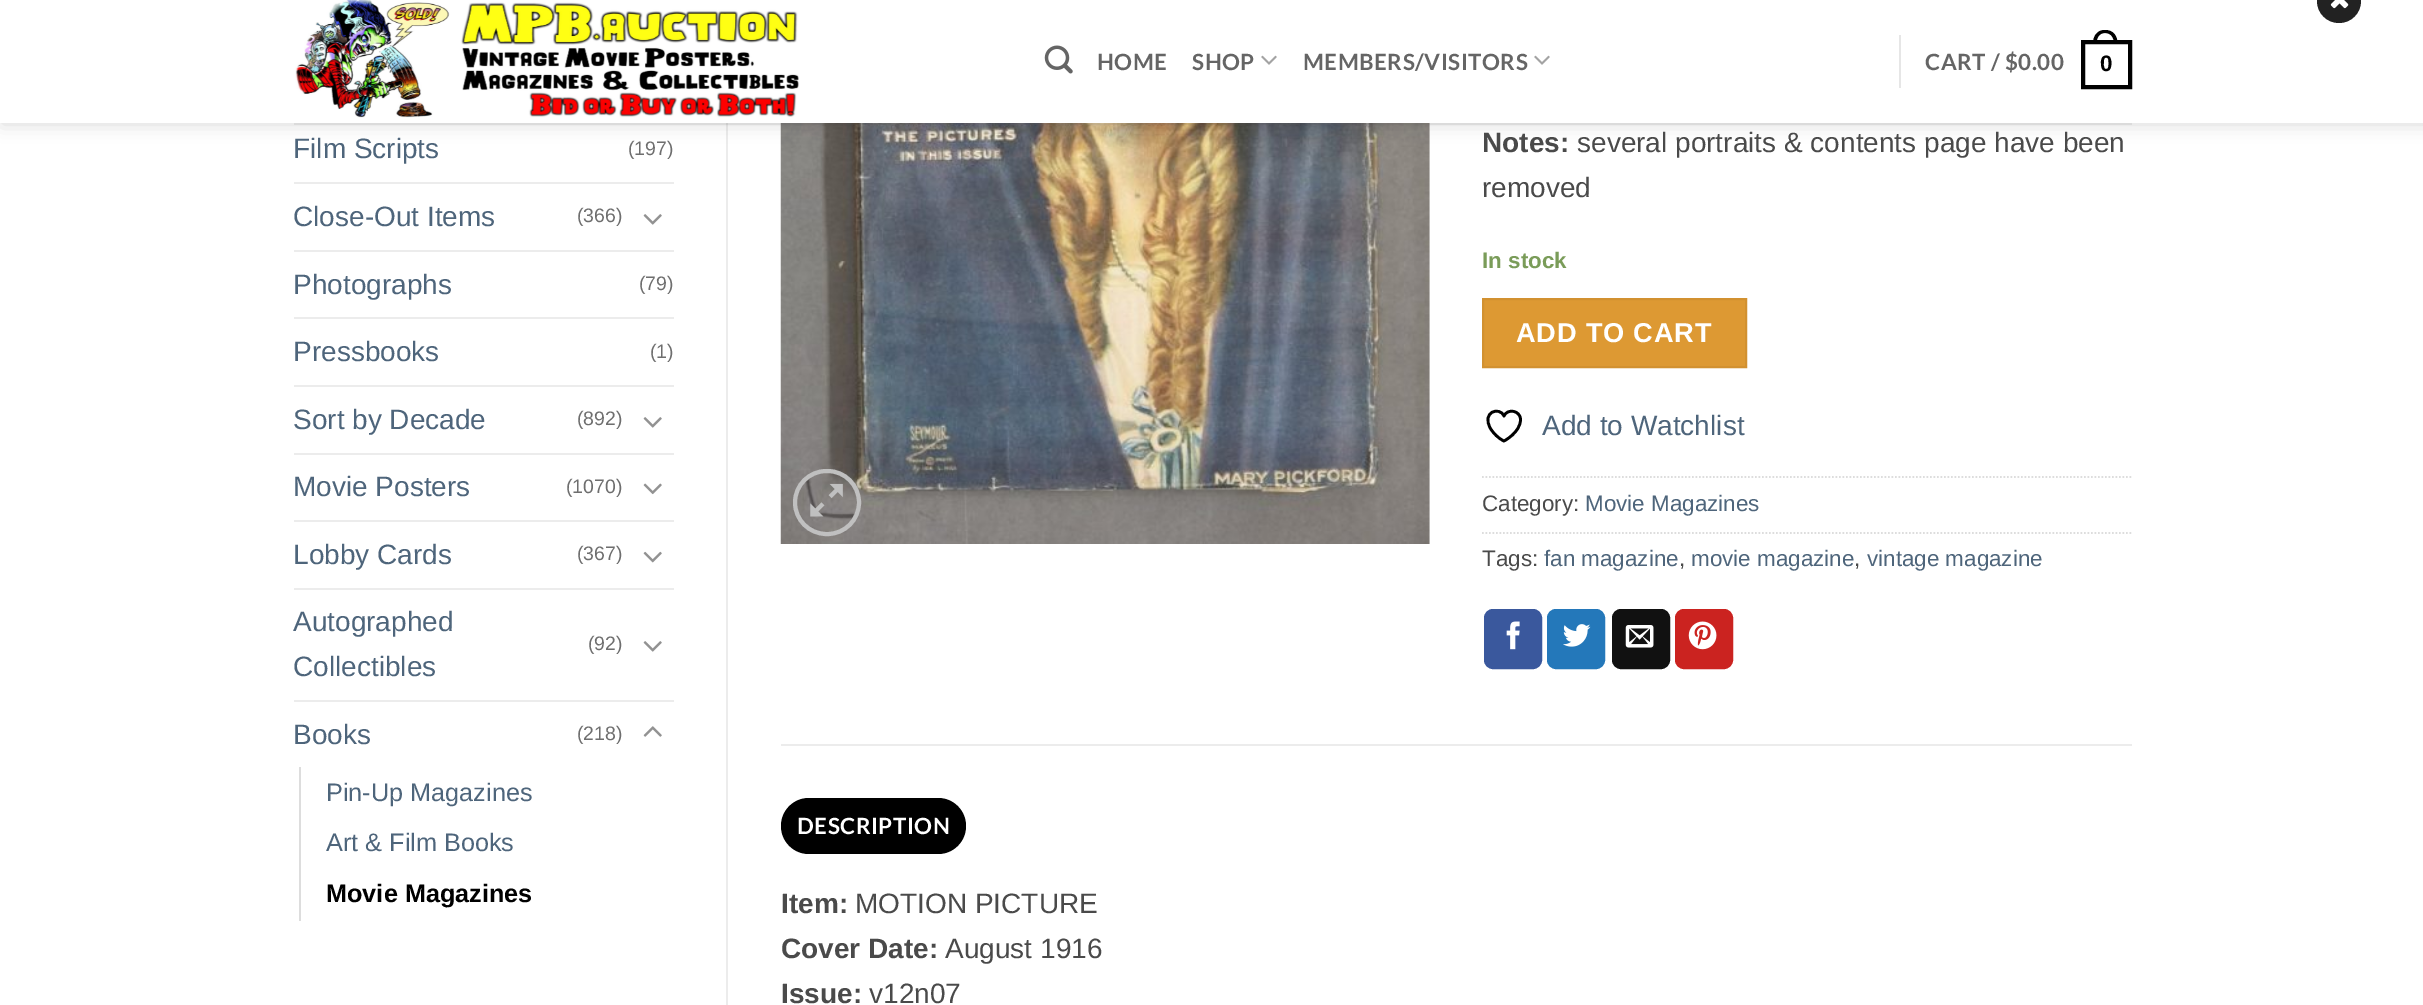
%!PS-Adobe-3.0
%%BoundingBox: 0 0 2423 1005
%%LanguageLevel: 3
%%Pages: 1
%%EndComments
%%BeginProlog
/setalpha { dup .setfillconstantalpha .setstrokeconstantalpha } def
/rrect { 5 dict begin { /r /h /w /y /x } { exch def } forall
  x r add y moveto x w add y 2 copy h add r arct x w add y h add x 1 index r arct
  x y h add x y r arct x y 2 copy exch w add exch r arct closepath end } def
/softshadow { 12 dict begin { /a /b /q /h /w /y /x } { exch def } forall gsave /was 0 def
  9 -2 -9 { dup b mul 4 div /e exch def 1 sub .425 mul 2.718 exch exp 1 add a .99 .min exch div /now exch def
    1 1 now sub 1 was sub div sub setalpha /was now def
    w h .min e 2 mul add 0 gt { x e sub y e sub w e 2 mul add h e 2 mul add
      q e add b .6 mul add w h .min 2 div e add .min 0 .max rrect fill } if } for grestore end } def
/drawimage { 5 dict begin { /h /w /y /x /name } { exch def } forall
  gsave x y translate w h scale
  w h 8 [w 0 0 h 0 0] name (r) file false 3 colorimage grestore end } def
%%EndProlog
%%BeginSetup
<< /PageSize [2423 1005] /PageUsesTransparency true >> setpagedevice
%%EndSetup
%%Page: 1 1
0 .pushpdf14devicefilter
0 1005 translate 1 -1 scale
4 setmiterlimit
1 setgray
0 0 2423 1005 rectfill
0.925 setgray
726 123 2 882 rectfill
(images/9.raw) 780 123 650 421 drawimage
0 setgray
2 2 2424 122 0 9 0.15 softshadow
1 setgray
0 0 2423 123 rectfill
0.133 setgray
newpath 2339 1 22 0 360 arc closepath fill
(images/1.raw) 2330 0 19 9 drawimage
(images/2.raw) 295 0 504 118 drawimage
(images/3.raw) 1044 45 29 29 drawimage
(images/4.raw) 1261 55 16 10 drawimage
(images/4.raw) 1534 55 16 10 drawimage
0.902 setgray
1899 35 2 53 rectfill
0 setgray
4 setlinewidth
2083 42 47 45 rectstroke
newpath 2105 30 moveto 2113.5 30 2117.5 36 2117.5 44 curveto 2093 44 lineto 2093 36 2097 30 2105 30 curveto closepath 2105 33 moveto 2111.5 33 2114 38 2114 44 curveto 2096.5 44 lineto 2096.5 38 2099 33 2105 33 curveto closepath eofill
0.1 setalpha
0.29 setgray
294 123 1838 2 rectfill
1 setalpha
0.925 setgray
294 182 380 2 rectfill
(images/5.raw) 643 214 19 11 drawimage
294 250 380 2 rectfill
294 317 380 2 rectfill
294 385 380 2 rectfill
(images/5.raw) 643 417 19 11 drawimage
294 453 380 2 rectfill
(images/6.raw) 643 483 19 12 drawimage
294 520 380 2 rectfill
(images/7.raw) 643 551 19 12 drawimage
294 588 380 2 rectfill
(images/5.raw) 643 641 19 11 drawimage
294 700 380 2 rectfill
(images/8.raw) 643 726 19 11 drawimage
0.867 setgray
299 767 2 154 rectfill
0.753 setgray
795 471 64 63 31.5 rrect stroke
(images/10.raw) 810 483 33 34 drawimage
0.867 0.6 0.2 setrgbcolor
newpath 1483 299 moveto 1746 299 lineto 1746 367 lineto 1483 367 lineto closepath gsave fill grestore
0.824 0.569 0.188 setrgbcolor
2 setlinewidth
stroke
0 setgray
2.7 setlinewidth
1 setlinecap
1 setlinejoin
newpath 1520.5 419.5 moveto 1520.5 410.5 1507.5 408 1504 416 curveto 1499.5 406 1481 412 1490.5 428.5 curveto 1493.5 433.5 1498.5 438.5 1504 441 curveto 1504 441 1520.5 432.5 1520.5 419.5 curveto closepath stroke
0.867 setgray
1.8 setlinewidth
0 setlinecap
0 setlinejoin
[1.75 1.75] 0 setdash
newpath 1482 477 moveto 2131.5 477 lineto stroke
newpath 1482 533 moveto 2131.5 533 lineto stroke
0.227 0.345 0.616 setrgbcolor
1485 610 56 58 8 rrect gsave fill grestore
2 setlinewidth
[] 0 setdash
stroke
(images/11.raw) 1506 621 14 29 drawimage
0.141 0.471 0.729 setrgbcolor
1548 610 56 58 8 rrect gsave fill grestore
stroke
(images/12.raw) 1563 624 28 23 drawimage
0.067 setgray
1613 610 56 58 8 rrect gsave fill grestore
stroke
(images/13.raw) 1625 625 29 23 drawimage
0.796 0.137 0.125 setrgbcolor
1676 610 56 58 8 rrect gsave fill grestore
stroke
(images/14.raw) 1688 621 29 29 drawimage
0.925 setgray
781 744 1351 2 rectfill
0 setgray
781 798 185 56 28 rrect fill
/Lato-Bold [22.4 0 0 -22.4 0 0] selectfont
0.396 setgray
1097 70 moveto 0.5 0 (HOME) ashow
1192 70 moveto 0.5 0 (SHOP) ashow
1303 70 moveto 0.5 0 (MEMBERS/VISITORS) ashow
1925 70 moveto 0.5 0 (CART / $0.00) ashow
/LiberationSans-Bold [22.4 0 0 -22.4 0 0] selectfont
0 setgray
2100 71 moveto 0.5 0 (0) ashow
/LiberationSans-Regular [28 0 0 -28 0 0] selectfont
0.306 0.396 0.482 setrgbcolor
293 158 moveto (Film Scripts) show
/LiberationSans-Regular [19.5 0 0 -19.5 0 0] selectfont
0.431 setgray
628 155 moveto (\(197\)) show
/LiberationSans-Regular [28 0 0 -28 0 0] selectfont
0.306 0.396 0.482 setrgbcolor
293 226 moveto (Close-Out Items) show
/LiberationSans-Regular [19.5 0 0 -19.5 0 0] selectfont
0.431 setgray
577 222 moveto (\(366\)) show
/LiberationSans-Regular [28 0 0 -28 0 0] selectfont
0.306 0.396 0.482 setrgbcolor
293 294 moveto (Photographs) show
/LiberationSans-Regular [19.5 0 0 -19.5 0 0] selectfont
0.431 setgray
639 290 moveto (\(79\)) show
/LiberationSans-Regular [28 0 0 -28 0 0] selectfont
0.306 0.396 0.482 setrgbcolor
293 361 moveto (Pressbooks) show
/LiberationSans-Regular [19.5 0 0 -19.5 0 0] selectfont
0.431 setgray
650 358 moveto (\(1\)) show
/LiberationSans-Regular [28 0 0 -28 0 0] selectfont
0.306 0.396 0.482 setrgbcolor
293 429 moveto (Sort by Decade) show
/LiberationSans-Regular [19.5 0 0 -19.5 0 0] selectfont
0.431 setgray
577 425 moveto (\(892\)) show
/LiberationSans-Regular [28 0 0 -28 0 0] selectfont
0.306 0.396 0.482 setrgbcolor
293 496 moveto (Movie Posters) show
/LiberationSans-Regular [19.5 0 0 -19.5 0 0] selectfont
0.431 setgray
566 493 moveto (\(1070\)) show
/LiberationSans-Regular [28 0 0 -28 0 0] selectfont
0.306 0.396 0.482 setrgbcolor
293 564 moveto (Lobby Cards) show
/LiberationSans-Regular [19.5 0 0 -19.5 0 0] selectfont
0.431 setgray
577 560 moveto (\(367\)) show
/LiberationSans-Regular [28 0 0 -28 0 0] selectfont
0.306 0.396 0.482 setrgbcolor
293 631 moveto (Autographed) show
293 676 moveto (Collectibles) show
/LiberationSans-Regular [19.5 0 0 -19.5 0 0] selectfont
0.431 setgray
588 650 moveto (\(92\)) show
/LiberationSans-Regular [28 0 0 -28 0 0] selectfont
0.306 0.396 0.482 setrgbcolor
293 744 moveto (Books) show
/LiberationSans-Regular [19.5 0 0 -19.5 0 0] selectfont
0.431 setgray
577 740 moveto (\(218\)) show
/LiberationSans-Regular [25.25 0 0 -25.25 0 0] selectfont
0.306 0.396 0.482 setrgbcolor
326 801 moveto (Pin-Up Magazines) show
326 851 moveto (Art & Film Books) show
/LiberationSans-Bold [25.25 0 0 -25.25 0 0] selectfont
0 setgray
326 902 moveto (Movie Magazines) show
/LiberationSans-Bold [28 0 0 -28 0 0] selectfont
0.29 setgray
1482 152 moveto (Notes:) show
/LiberationSans-Regular [28 0 0 -28 0 0] selectfont
1577 152 moveto (several portraits & contents page have been) show
1482 197 moveto (removed) show
/LiberationSans-Bold [22.4 0 0 -22.4 0 0] selectfont
0.478 0.612 0.349 setrgbcolor
1482 268 moveto (In stock) show
/LiberationSans-Bold [27.25 0 0 -27.25 0 0] selectfont
1 setgray
1516 342 moveto 0.75 0 (ADD TO CART) ashow
/LiberationSans-Regular [28 0 0 -28 0 0] selectfont
0.306 0.396 0.482 setrgbcolor
1542 435 moveto (Add to Watchlist) show
/LiberationSans-Regular [22.4 0 0 -22.4 0 0] selectfont
0.29 setgray
1482 511 moveto (Category:) show
0.306 0.396 0.482 setrgbcolor
1585 511 moveto (Movie Magazines) show
0.29 setgray
1482 566 moveto (Tags:) show
0.306 0.396 0.482 setrgbcolor
1544 566 moveto (fan magazine) show
0.29 setgray
1679 566 moveto (,) show
0.306 0.396 0.482 setrgbcolor
1691 566 moveto (movie magazine) show
0.29 setgray
1854 566 moveto (,) show
0.306 0.396 0.482 setrgbcolor
1867 566 moveto (vintage magazine) show
/Lato-Bold [22.4 0 0 -22.4 0 0] selectfont
1 setgray
797 834 moveto 0.5 0 (DESCRIPTION) ashow
/LiberationSans-Bold [28 0 0 -28 0 0] selectfont
0.29 setgray
781 913 moveto (Item:) show
/LiberationSans-Regular [28 0 0 -28 0 0] selectfont
855 913 moveto (MOTION PICTURE) show
/LiberationSans-Bold [28 0 0 -28 0 0] selectfont
781 958 moveto (Cover Date:) show
/LiberationSans-Regular [28 0 0 -28 0 0] selectfont
945 958 moveto (August 1916) show
/LiberationSans-Bold [28 0 0 -28 0 0] selectfont
781 1003 moveto (Issue:) show
/LiberationSans-Regular [28 0 0 -28 0 0] selectfont
869 1003 moveto (v12n07) show
.poppdf14devicefilter showpage
%%EOF
